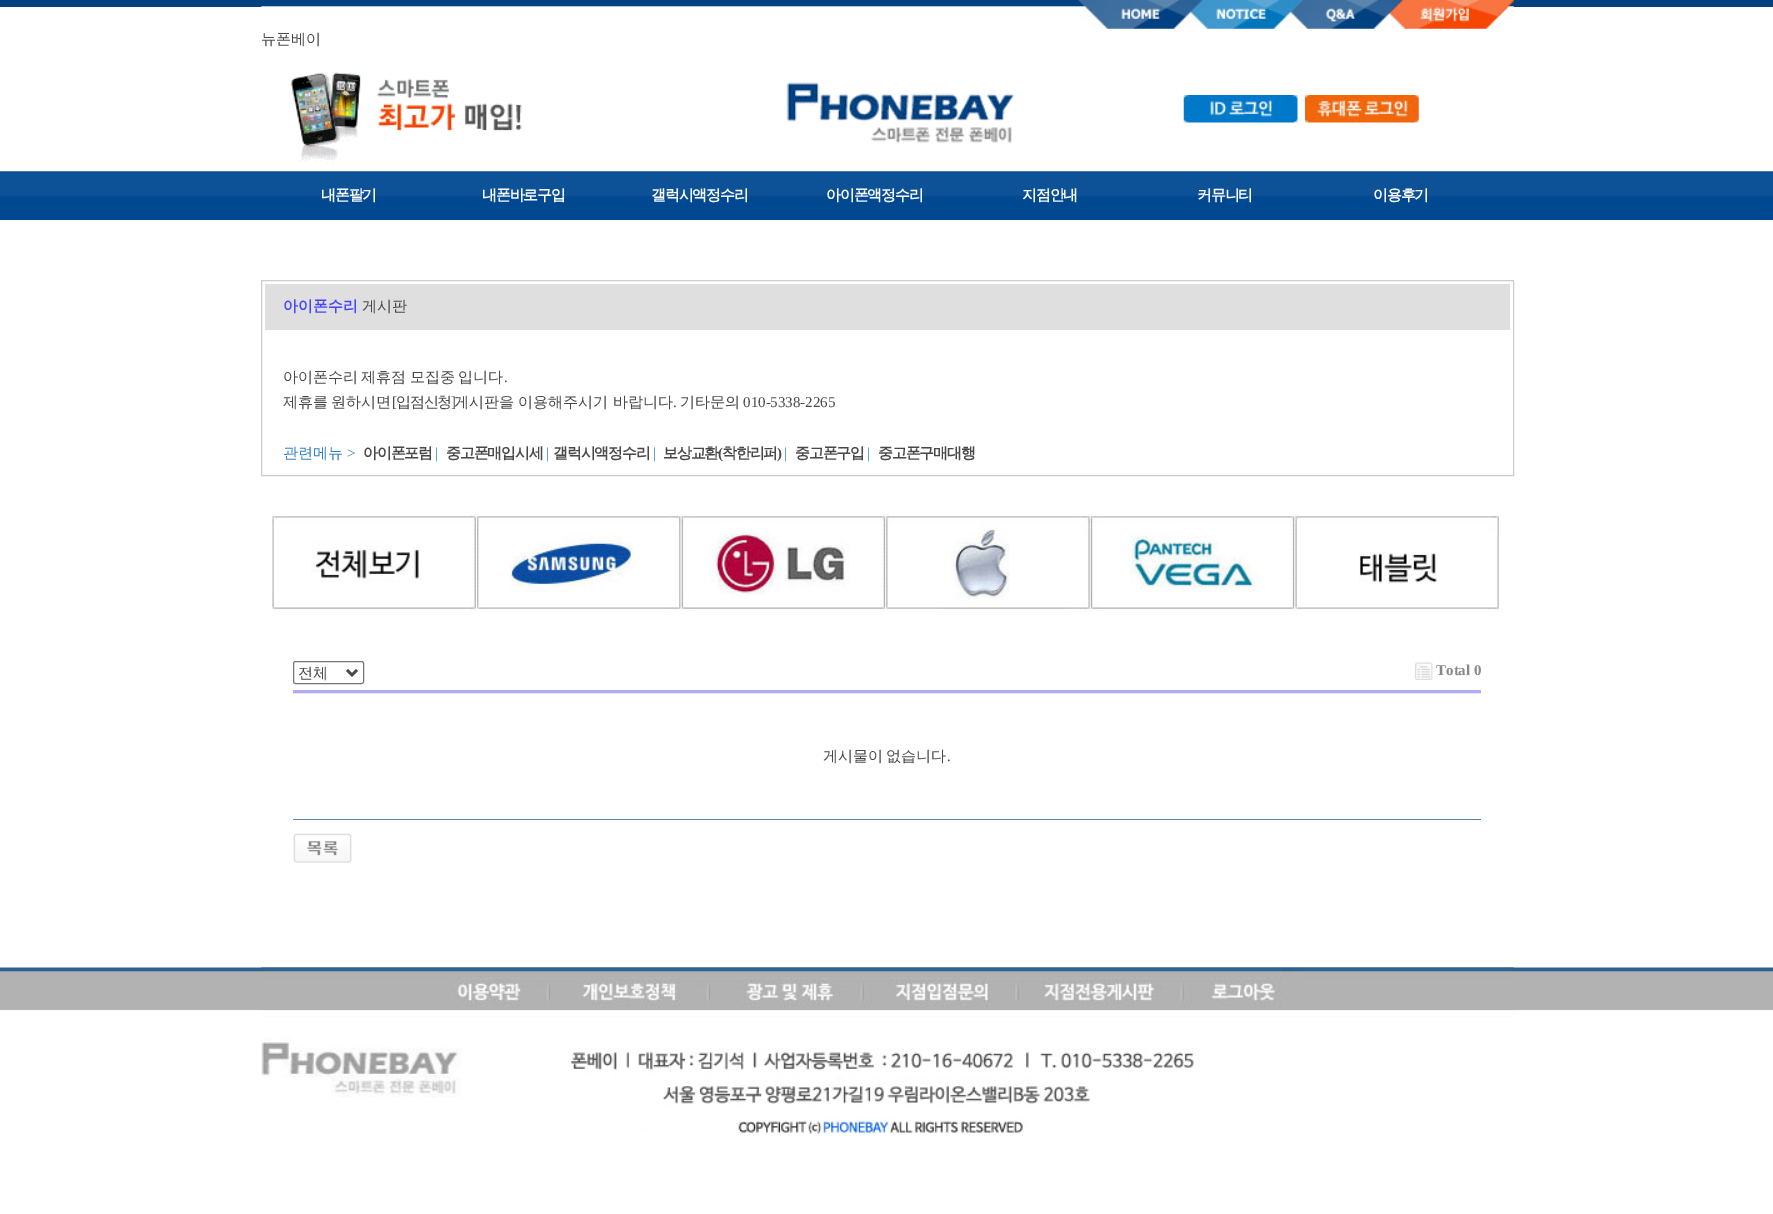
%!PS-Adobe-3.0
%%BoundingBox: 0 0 1773 1214
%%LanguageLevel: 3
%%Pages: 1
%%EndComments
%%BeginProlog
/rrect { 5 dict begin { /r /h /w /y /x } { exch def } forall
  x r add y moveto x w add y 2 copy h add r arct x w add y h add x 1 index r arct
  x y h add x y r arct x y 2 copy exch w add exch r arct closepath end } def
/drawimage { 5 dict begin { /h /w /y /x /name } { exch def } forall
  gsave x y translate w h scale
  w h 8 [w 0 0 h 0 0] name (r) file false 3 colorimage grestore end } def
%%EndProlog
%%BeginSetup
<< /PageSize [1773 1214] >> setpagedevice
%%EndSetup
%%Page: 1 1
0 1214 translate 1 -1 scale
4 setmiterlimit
1 setgray
0 0 1773 1214 rectfill
0 0.255 0.502 setrgbcolor
0 0 1773 7 rectfill
(images/1.raw) 261 0 1253 29 drawimage
(images/2.raw) 291 72 724 92 drawimage
(images/3.raw) 1183 95 115 28 drawimage
(images/4.raw) 1305 95 114 28 drawimage
(images/5.raw) 0 171 1773 49 drawimage
0.8 setgray
261.5 280.5 1252 195 rectstroke
0.875 setgray
265 284 1245 46 rectfill
(images/6.raw) 271 514 1228 97 drawimage
0.463 setgray
293.5 661.5 70 22 2 rrect stroke
0.282 setgray
2.5 setlinewidth
newpath 347 670 moveto 352 675 lineto 357 670 lineto stroke
(images/7.raw) 1415 662 18 18 drawimage
0.69 0.678 0.961 setrgbcolor
293 690 1188 3 rectfill
0.906 setgray
293 693 1188 1 rectfill
0.361 0.525 0.678 setrgbcolor
293 819 1188 1 rectfill
(images/8.raw) 293 833 59 30 drawimage
(images/9.raw) 0 967 1773 44 drawimage
(images/10.raw) 261 967 1253 167 drawimage
/WenQuanYiZenHei-Medium [15 0 0 -15 0 0] selectfont
0.282 setgray
261 44 moveto (뉴폰베이) show
/WenQuanYiZenHei-Bold [15 0 0 -15 0 0] selectfont
1 setgray
321 200 moveto -1.25 0 (내폰팔기) ashow
482 200 moveto -1.25 0 (내폰바로구입) ashow
651 200 moveto -1.25 0 (갤럭시액정수리) ashow
826 200 moveto -1.25 0 (아이폰액정수리) ashow
1022 200 moveto -1.25 0 (지점안내) ashow
1197 200 moveto -1.25 0 (커뮤니티) ashow
1373 200 moveto -1.25 0 (이용후기) ashow
0.275 0.275 1 setrgbcolor
283 311 moveto (아이폰수리) show
/WenQuanYiZenHei-Medium [15 0 0 -15 0 0] selectfont
0.282 setgray
362 311 moveto (게시판) show
283 382 moveto -1 0 32 (아이폰수리 제휴점 모집중 입니다) widthshow
/LiberationSerif-Regular [15 0 0 -15 0 0] selectfont
504 382 moveto (.) show
/WenQuanYiZenHei-Medium [15 0 0 -15 0 0] selectfont
283 407 moveto -1 0 32 (제휴를 원하시면) widthshow
/LiberationSerif-Regular [15 0 0 -15 0 0] selectfont
392 407 moveto -1.25 0 ([) ashow
/WenQuanYiZenHei-Medium [15 0 0 -15 0 0] selectfont
396 407 moveto -1.25 0 (입점신청) ashow
/LiberationSerif-Regular [15 0 0 -15 0 0] selectfont
451 407 moveto -1.25 0 (]) ashow
/WenQuanYiZenHei-Medium [15 0 0 -15 0 0] selectfont
454 407 moveto (게시판을 이용해주시기 바랍니다) show
/LiberationSerif-Regular [15 0 0 -15 0 0] selectfont
673 407 moveto (.) show
/WenQuanYiZenHei-Medium [15 0 0 -15 0 0] selectfont
680 407 moveto (기타문의) show
/LiberationSerif-Regular [15 0 0 -15 0 0] selectfont
743 407 moveto (010-5338-2265) show
/WenQuanYiZenHei-Medium [15 0 0 -15 0 0] selectfont
0.18 0.506 0.761 setrgbcolor
283 458 moveto (관련메뉴) show
/LiberationSerif-Regular [15 0 0 -15 0 0] selectfont
347 458 moveto (>) show
/WenQuanYiZenHei-Bold [15 0 0 -15 0 0] selectfont
0.282 setgray
363 458 moveto -1.25 0 (아이폰포럼) ashow
/LiberationSerif-Regular [15 0 0 -15 0 0] selectfont
0.18 0.506 0.761 setrgbcolor
435 458 moveto (|) show
/WenQuanYiZenHei-Bold [15 0 0 -15 0 0] selectfont
0.282 setgray
446 458 moveto -1.25 0 (중고폰매입시세) ashow
/LiberationSerif-Regular [15 0 0 -15 0 0] selectfont
0.18 0.506 0.761 setrgbcolor
546 458 moveto (|) show
/WenQuanYiZenHei-Bold [15 0 0 -15 0 0] selectfont
0.282 setgray
553 458 moveto -1.25 0 (갤럭시액정수리) ashow
/LiberationSerif-Regular [15 0 0 -15 0 0] selectfont
0.18 0.506 0.761 setrgbcolor
653 458 moveto (|) show
/WenQuanYiZenHei-Bold [15 0 0 -15 0 0] selectfont
0.282 setgray
663 458 moveto -1.25 0 (보상교환) ashow
/LiberationSerif-Bold [15 0 0 -15 0 0] selectfont
718 458 moveto -1.25 0 (\() ashow
/WenQuanYiZenHei-Bold [15 0 0 -15 0 0] selectfont
722 458 moveto -1.25 0 (착한리퍼) ashow
/LiberationSerif-Bold [15 0 0 -15 0 0] selectfont
777 458 moveto -1.25 0 (\)) ashow
/LiberationSerif-Regular [15 0 0 -15 0 0] selectfont
0.18 0.506 0.761 setrgbcolor
784 458 moveto (|) show
/WenQuanYiZenHei-Bold [15 0 0 -15 0 0] selectfont
0.282 setgray
795 458 moveto -1.25 0 (중고폰구입) ashow
/LiberationSerif-Regular [15 0 0 -15 0 0] selectfont
0.18 0.506 0.761 setrgbcolor
867 458 moveto (|) show
/WenQuanYiZenHei-Bold [15 0 0 -15 0 0] selectfont
0.282 setgray
878 458 moveto -1.25 0 (중고폰구매대행) ashow
/WenQuanYiZenHei-Medium [15 0 0 -15 0 0] selectfont
298 678 moveto (전체) show
/LiberationSerif-Bold [15 0 0 -15 0 0] selectfont
0.533 setgray
1436 675 moveto (Total 0) show
/WenQuanYiZenHei-Medium [15 0 0 -15 0 0] selectfont
0.282 setgray
823 761 moveto -1 0 32 (게시물이 없습니다) widthshow
/LiberationSerif-Regular [15 0 0 -15 0 0] selectfont
947 761 moveto (.) show
showpage
%%EOF
